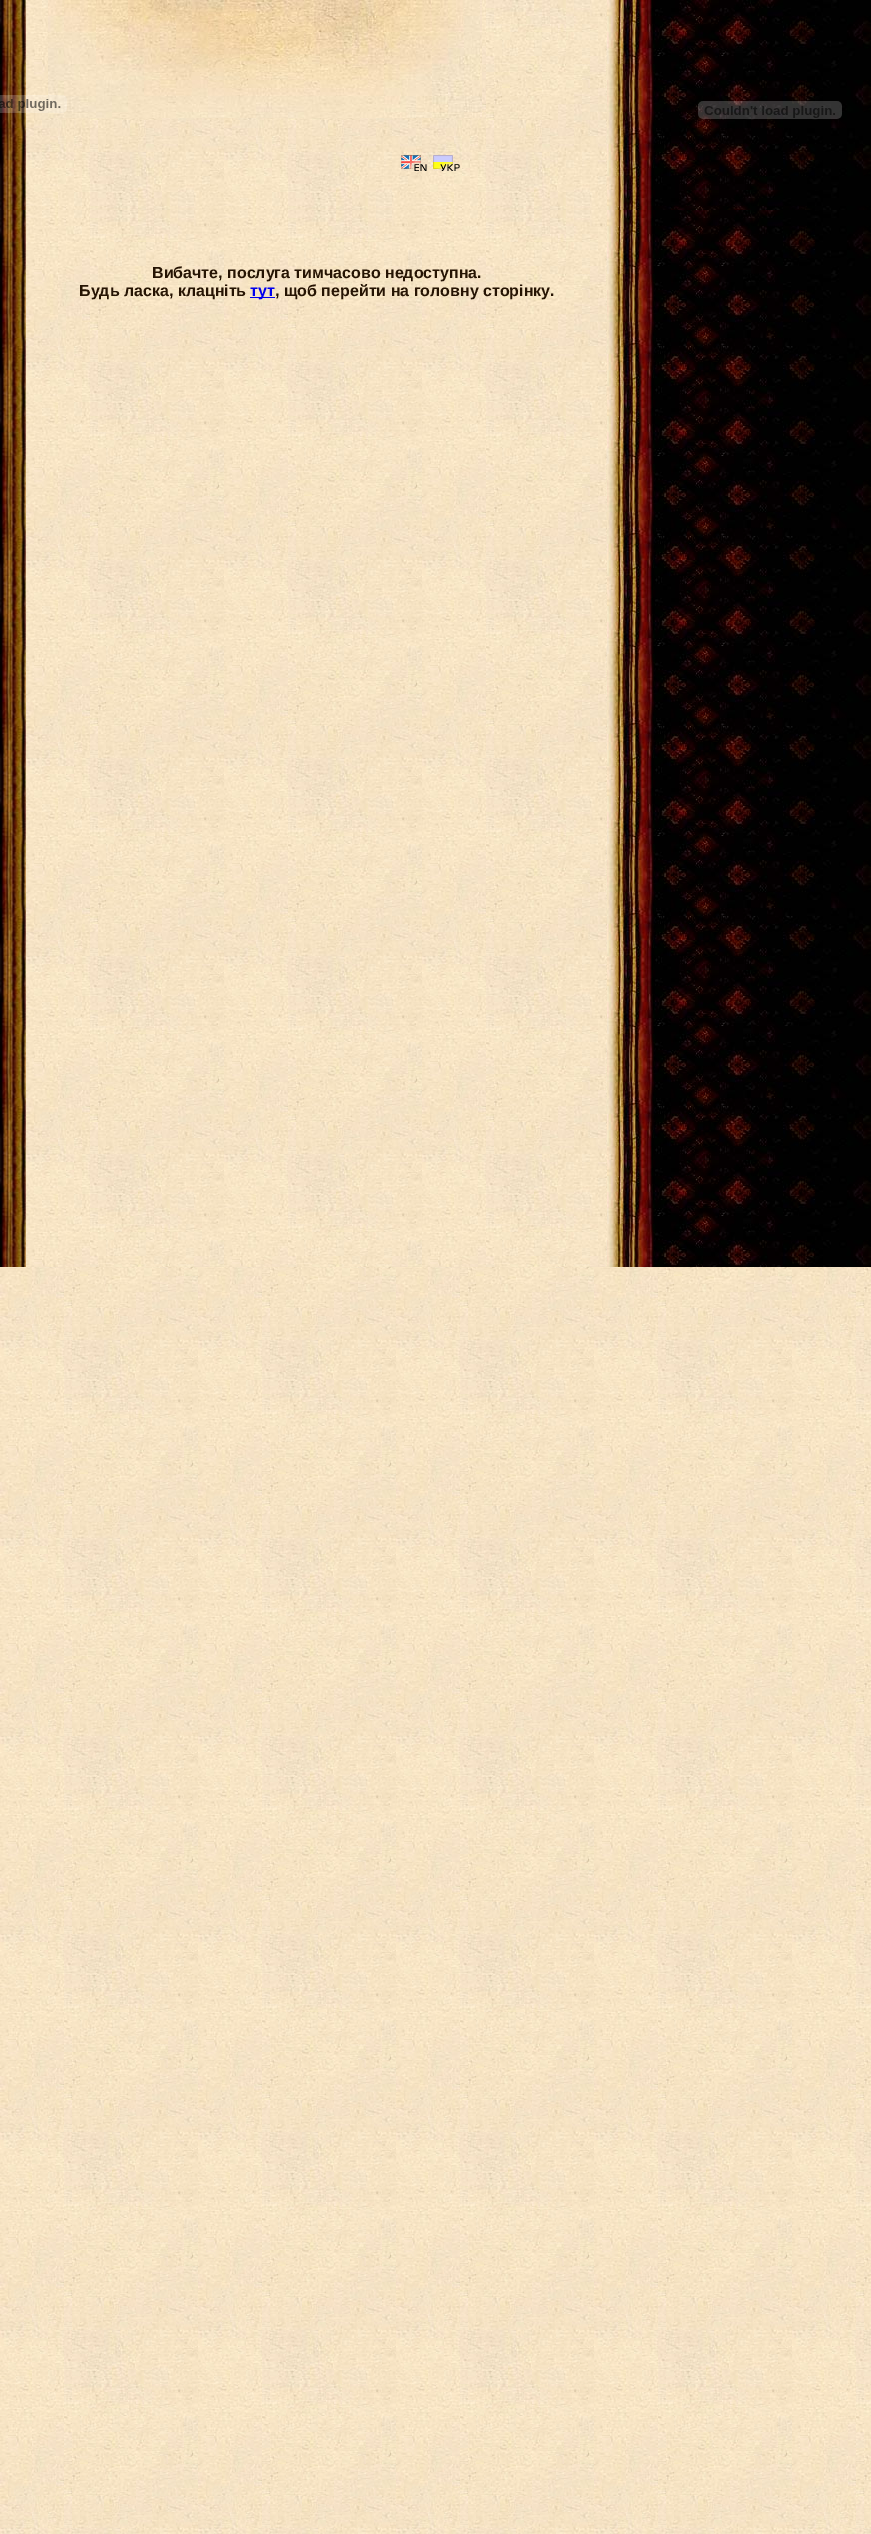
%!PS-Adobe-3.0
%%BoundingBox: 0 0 871 2534
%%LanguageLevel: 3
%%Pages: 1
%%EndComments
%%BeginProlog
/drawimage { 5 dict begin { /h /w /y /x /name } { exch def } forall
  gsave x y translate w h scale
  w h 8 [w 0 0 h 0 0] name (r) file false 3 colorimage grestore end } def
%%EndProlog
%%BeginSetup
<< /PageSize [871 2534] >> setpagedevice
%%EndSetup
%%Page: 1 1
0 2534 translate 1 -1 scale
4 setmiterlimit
1 setgray
0 0 871 2534 rectfill
(images/1.raw) 0 1267 871 1267 drawimage
(images/8.raw) 26 0 581 210 drawimage
(images/3.raw) 48 0 434 118 drawimage
(images/7.raw) 0 0 26 210 drawimage
(images/2.raw) 0 95 67 18 drawimage
(images/4.raw) 401 155 27 16 drawimage
(images/5.raw) 433 155 27 16 drawimage
(images/9.raw) 607 0 264 210 drawimage
(images/6.raw) 698 101 144 18 drawimage
(images/10.raw) 0 210 26 1057 drawimage
(images/11.raw) 26 210 581 1057 drawimage
0 0 0.933 setrgbcolor
250 297 25 1 rectfill
(images/12.raw) 607 210 264 1057 drawimage
/LiberationSans-Bold [16 0 0 -16 0 0] selectfont
0.149 0.078 0.012 setrgbcolor
152 278 moveto (Вибачте, послуга тимчасово недоступна.) show
79 296 moveto (Будь ласка, клацніть) show
0 0 0.933 setrgbcolor
250 296 moveto (тут) show
0.149 0.078 0.012 setrgbcolor
275 296 moveto (, щоб перейти на головну сторінку.) show
showpage
%%EOF
